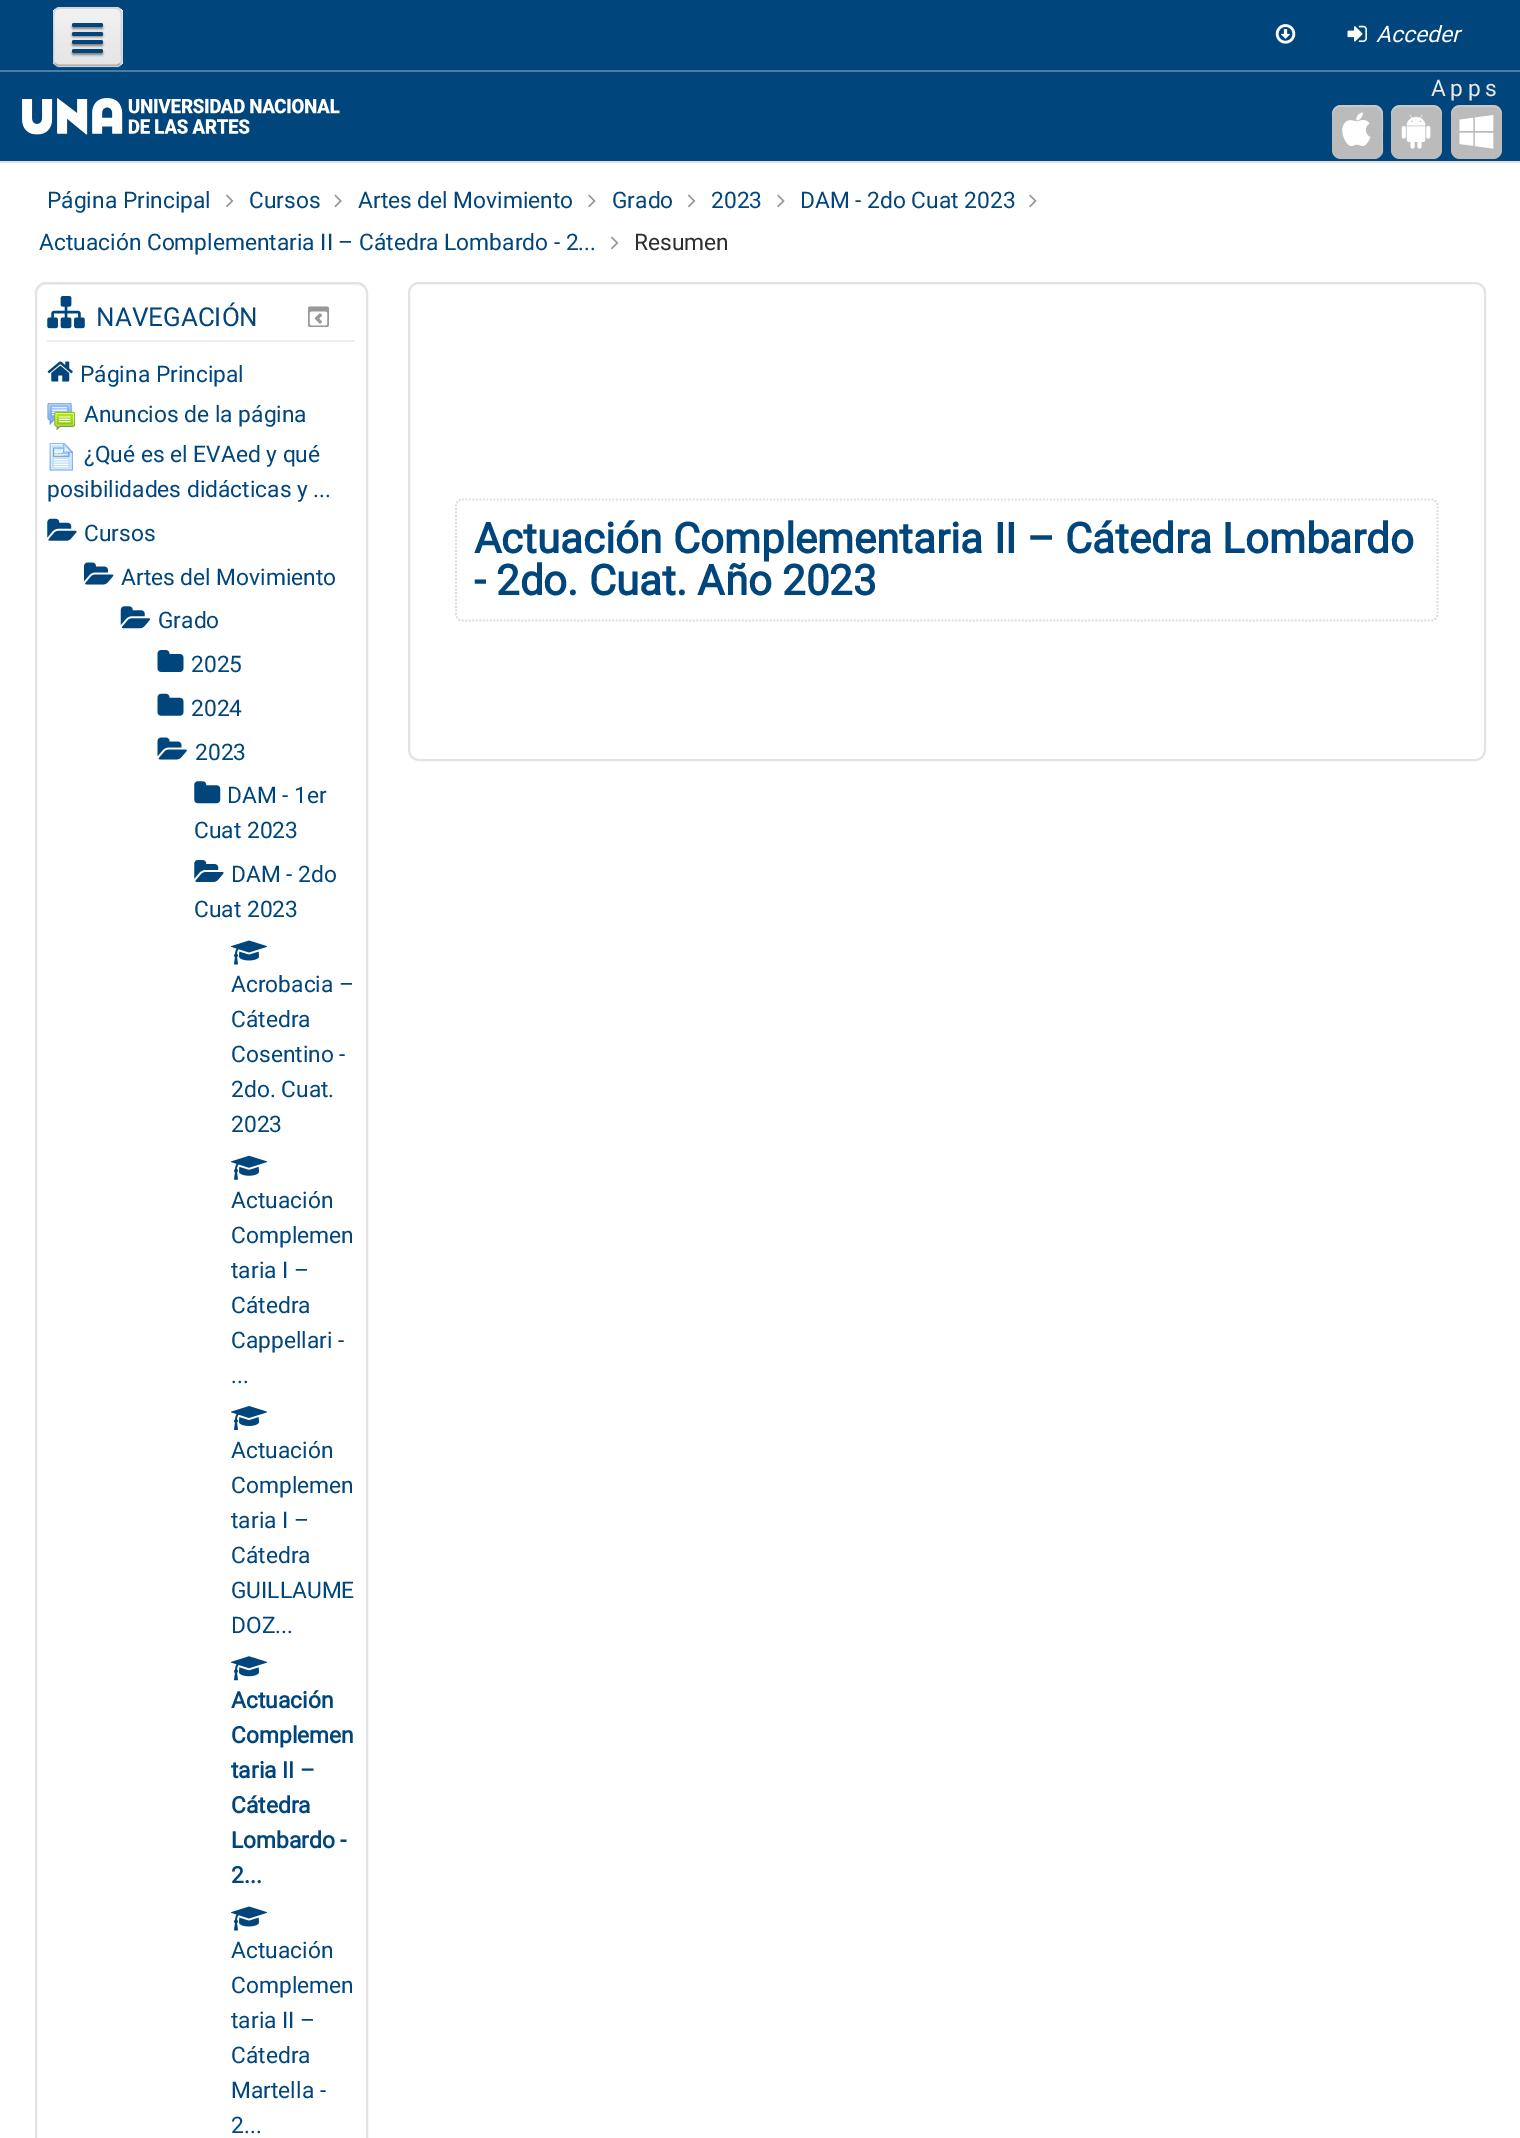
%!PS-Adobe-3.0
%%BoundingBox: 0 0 1520 2138
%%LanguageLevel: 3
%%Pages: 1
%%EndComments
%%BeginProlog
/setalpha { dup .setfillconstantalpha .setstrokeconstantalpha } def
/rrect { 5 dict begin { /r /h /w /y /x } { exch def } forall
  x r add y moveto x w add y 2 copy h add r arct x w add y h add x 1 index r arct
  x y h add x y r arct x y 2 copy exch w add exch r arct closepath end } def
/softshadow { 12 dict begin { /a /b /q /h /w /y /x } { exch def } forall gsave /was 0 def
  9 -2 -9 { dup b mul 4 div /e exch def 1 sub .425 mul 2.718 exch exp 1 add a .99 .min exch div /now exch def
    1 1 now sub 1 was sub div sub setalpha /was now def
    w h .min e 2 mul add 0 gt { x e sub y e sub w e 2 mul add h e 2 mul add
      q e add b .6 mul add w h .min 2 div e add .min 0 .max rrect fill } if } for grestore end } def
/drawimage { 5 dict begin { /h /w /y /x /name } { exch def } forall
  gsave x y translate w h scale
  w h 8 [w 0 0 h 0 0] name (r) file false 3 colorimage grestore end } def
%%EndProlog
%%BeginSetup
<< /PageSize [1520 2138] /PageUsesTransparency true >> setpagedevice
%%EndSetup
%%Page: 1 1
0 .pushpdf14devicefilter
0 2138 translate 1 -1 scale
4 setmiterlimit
1 setgray
0 0 1520 2138 rectfill
0.302 0.49 0.639 setrgbcolor
0 70 1520 2 rectfill
0 0.271 0.486 setrgbcolor
0 0 1520 70 rectfill
0.075 0.325 0.525 setrgbcolor
newpath 53 62 moveto 54 66 57 68 60 68 curveto 116 68 lineto 120 68 123 65 123 61 curveto 123 16 lineto 122 13 lineto 122 60 lineto 122 63 119 66 116 66 curveto 60 66 lineto 57 66 54 65 53 62 curveto closepath fill
0.929 setgray
53 7 70 60 7 rrect fill
gsave
53 7 70 60 7 rrect clip newpath
gsave newpath 53 9 moveto 123 9 lineto 123 65 lineto 53 65 lineto closepath clip newpath
<< /ShadingType 2 /ColorSpace /DeviceRGB /Coords [88 9 88 65] /Extend [true true] /Function << /FunctionType 2 /Domain [0 1] /C0 [0.949 0.949 0.949] /C1 [0.898 0.898 0.898] /N 1 >> >> shfill grestore
grestore
0.25 setalpha
0 setgray
1.8 setlinewidth
newpath 120 64 moveto 118.5 65 117 65.5 115.5 65.5 curveto 59.5 65.5 lineto 58 65.5 56.5 65 55 64 curveto stroke
0.1 setalpha
newpath 55 64 moveto 52 61 53.5 55.5 53.5 52 curveto 53.5 21.5 lineto 53.5 7 54 8 69 8 curveto 106 8 lineto 121 8 121.5 7 121.5 21.5 curveto 121.5 52 lineto 121.5 55.5 123 61 120 64 curveto stroke
1 setalpha
72 25 31 4 2 1 0.45 softshadow
0 0.271 0.486 setrgbcolor
72 23 31 4 2 rrect fill
0 setgray
72 33 31 4 2 1 0.45 softshadow
0 0.271 0.486 setrgbcolor
72 32 31 4 2 rrect fill
0 setgray
72 42 31 4 2 1 0.45 softshadow
0 0.271 0.486 setrgbcolor
72 40 31 4 2 rrect fill
0 setgray
72 51 31 4 2 1 0.45 softshadow
0 0.271 0.486 setrgbcolor
72 49 31 4 2 rrect fill
(images/1.raw) 1275 24 21 20 drawimage
(images/2.raw) 1347 25 20 17 drawimage
0 72 1520 89 rectfill
0.867 setgray
0 161 1520 2 rectfill
0.733 setgray
1332 105 51 54 9 rrect fill
0.2 setalpha
1 setgray
newpath 1340 107 moveto 1376 107 lineto 1384 109 1382 122 1382 128 curveto 1382 155 lineto 1384 151 1383 148 1383 144 curveto 1383 132 lineto 1383 104 1386 105 1358 105 curveto 1346 105 lineto 1338 105 1332 106 1332 116 curveto 1332 111 1336 107 1340 107 curveto closepath fill
1 setalpha
(images/3.raw) 1342 112 29 34 drawimage
0.733 setgray
1391 105 51 54 9 rrect fill
0.2 setalpha
1 setgray
newpath 1400 107 moveto 1433 107 lineto 1438 107 1442 111 1442 116 curveto 1442 106 1436 105 1428 105 curveto 1406 105 lineto 1397 105 1391 106 1391 116 curveto 1391 111 1395 107 1400 107 curveto closepath fill
1 setalpha
(images/4.raw) 1401 115 30 34 drawimage
0.733 setgray
1451 105 51 54 9 rrect fill
0.2 setalpha
1 setgray
newpath 1460 107 moveto 1493 107 lineto 1498 107 1502 111 1502 116 curveto 1502 106 1496 105 1488 105 curveto 1466 105 lineto 1457 105 1451 106 1451 116 curveto 1451 111 1455 107 1460 107 curveto closepath fill
1 setalpha
(images/5.raw) 1459 115 35 34 drawimage
(images/6.raw) 22 98 318 37 drawimage
(images/7.raw) 226 194 8 14 drawimage
(images/8.raw) 334 194 8 14 drawimage
(images/9.raw) 588 194 8 14 drawimage
(images/7.raw) 688 194 8 14 drawimage
(images/9.raw) 777 194 8 14 drawimage
(images/9.raw) 1029 194 8 14 drawimage
(images/7.raw) 611 236 8 14 drawimage
0.949 setgray
newpath 46 285 moveto 357 285 lineto 362 285 366 289 366 294 curveto 366 293 lineto 366 288 362 284 357 284 curveto 46 284 lineto 41 284 37 288 37 293 curveto 37 294 lineto 37 289 41 285 46 285 curveto closepath fill
0.89 setgray
2 setlinewidth
36 283 331 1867 10 rrect stroke
0.933 setgray
47 340 308 2 rectfill
(images/10.raw) 47 296 38 33 drawimage
(images/11.raw) 308 306 21 21 drawimage
(images/12.raw) 47 361 26 21 drawimage
(images/13.raw) 47 403 28 28 drawimage
(images/14.raw) 49 443 24 28 drawimage
(images/15.raw) 47 518 30 23 drawimage
(images/16.raw) 84 562 30 23 drawimage
(images/17.raw) 120 606 31 23 drawimage
(images/18.raw) 157 650 27 22 drawimage
(images/19.raw) 157 693 27 23 drawimage
(images/20.raw) 157 737 30 23 drawimage
(images/21.raw) 194 781 27 23 drawimage
(images/22.raw) 194 860 30 22 drawimage
(images/23.raw) 231 940 36 25 drawimage
(images/24.raw) 231 1155 36 25 drawimage
(images/25.raw) 231 1406 36 24 drawimage
(images/26.raw) 231 1656 36 25 drawimage
(images/23.raw) 231 1906 36 25 drawimage
0.89 setgray
409 283 1076 477 10 rrect stroke
0.867 setgray
1.8 setlinewidth
[1.75 1.75] 0 setdash
newpath 462 499.5 moveto 1431.5 499.5 lineto 1435 499.5 1437.5 502.5 1437.5 506 curveto 1437.5 614 lineto 1437.5 617.5 1435 620.5 1431.5 620.5 curveto 462 620.5 lineto 458.5 620.5 456 617.5 456 614 curveto 456 506 lineto 456 502.5 458.5 499.5 462 499.5 curveto closepath stroke
/Roboto-Italic [22.75 0 0 -22.75 0 0] selectfont
1 setgray
1376 42 moveto (Acceder) show
/Roboto-Regular [22.75 0 0 -22.75 0 0] selectfont
0.914 setgray
1431 96 moveto 4.5 0 (Apps) ashow
0 0.271 0.486 setrgbcolor
47 208 moveto (Página Principal) show
249 208 moveto (Cursos) show
358 208 moveto (Artes del Movimiento) show
612 208 moveto (Grado) show
711 208 moveto (2023) show
800 208 moveto (DAM - 2do Cuat 2023) show
39 250 moveto (Actuación Complementaria II – Cátedra Lombardo - 2...) show
0.18 setgray
634 250 moveto (Resumen) show
/Roboto-Regular [26 0 0 -26 0 0] selectfont
0 0.271 0.486 setrgbcolor
96 326 moveto (NAVEGACIÓN) show
/Roboto-Regular [22.75 0 0 -22.75 0 0] selectfont
80 382 moveto (Página Principal) show
84 422 moveto (Anuncios de la página) show
84 462 moveto (¿Qué es el EVAed y qué) show
47 497 moveto (posibilidades didácticas y ...) show
84 541 moveto (Cursos) show
121 585 moveto (Artes del Movimiento) show
158 628 moveto (Grado) show
191 672 moveto (2025) show
191 716 moveto (2024) show
195 760 moveto (2023) show
227 803 moveto (DAM - 1er) show
194 838 moveto (Cuat 2023) show
231 882 moveto (DAM - 2do) show
194 917 moveto (Cuat 2023) show
231 992 moveto (Acrobacia –) show
231 1027 moveto (Cátedra) show
231 1062 moveto (Cosentino -) show
231 1097 moveto (2do. Cuat.) show
231 1132 moveto (2023) show
231 1208 moveto (Actuación) show
231 1243 moveto (Complemen) show
231 1278 moveto (taria I –) show
231 1313 moveto (Cátedra) show
231 1348 moveto (Cappellari -) show
231 1383 moveto (...) show
231 1458 moveto (Actuación) show
231 1493 moveto (Complemen) show
231 1528 moveto (taria I –) show
231 1563 moveto (Cátedra) show
231 1598 moveto (GUILLAUME) show
231 1633 moveto (DOZ...) show
/Roboto-Bold [22.75 0 0 -22.75 0 0] selectfont
231 1708 moveto (Actuación) show
231 1743 moveto (Complemen) show
231 1778 moveto (taria II –) show
231 1813 moveto (Cátedra) show
231 1848 moveto (Lombardo -) show
231 1883 moveto (2...) show
/Roboto-Regular [22.75 0 0 -22.75 0 0] selectfont
231 1958 moveto (Actuación) show
231 1993 moveto (Complemen) show
231 2028 moveto (taria II –) show
231 2063 moveto (Cátedra) show
231 2098 moveto (Martella -) show
231 2133 moveto (2...) show
/Roboto-Bold [42 0 0 -42 0 0] selectfont
474 553 moveto (Actuación Complementaria II – Cátedra Lombardo) show
474 595 moveto (- 2do. Cuat. Año 2023) show
.poppdf14devicefilter showpage
%%EOF
